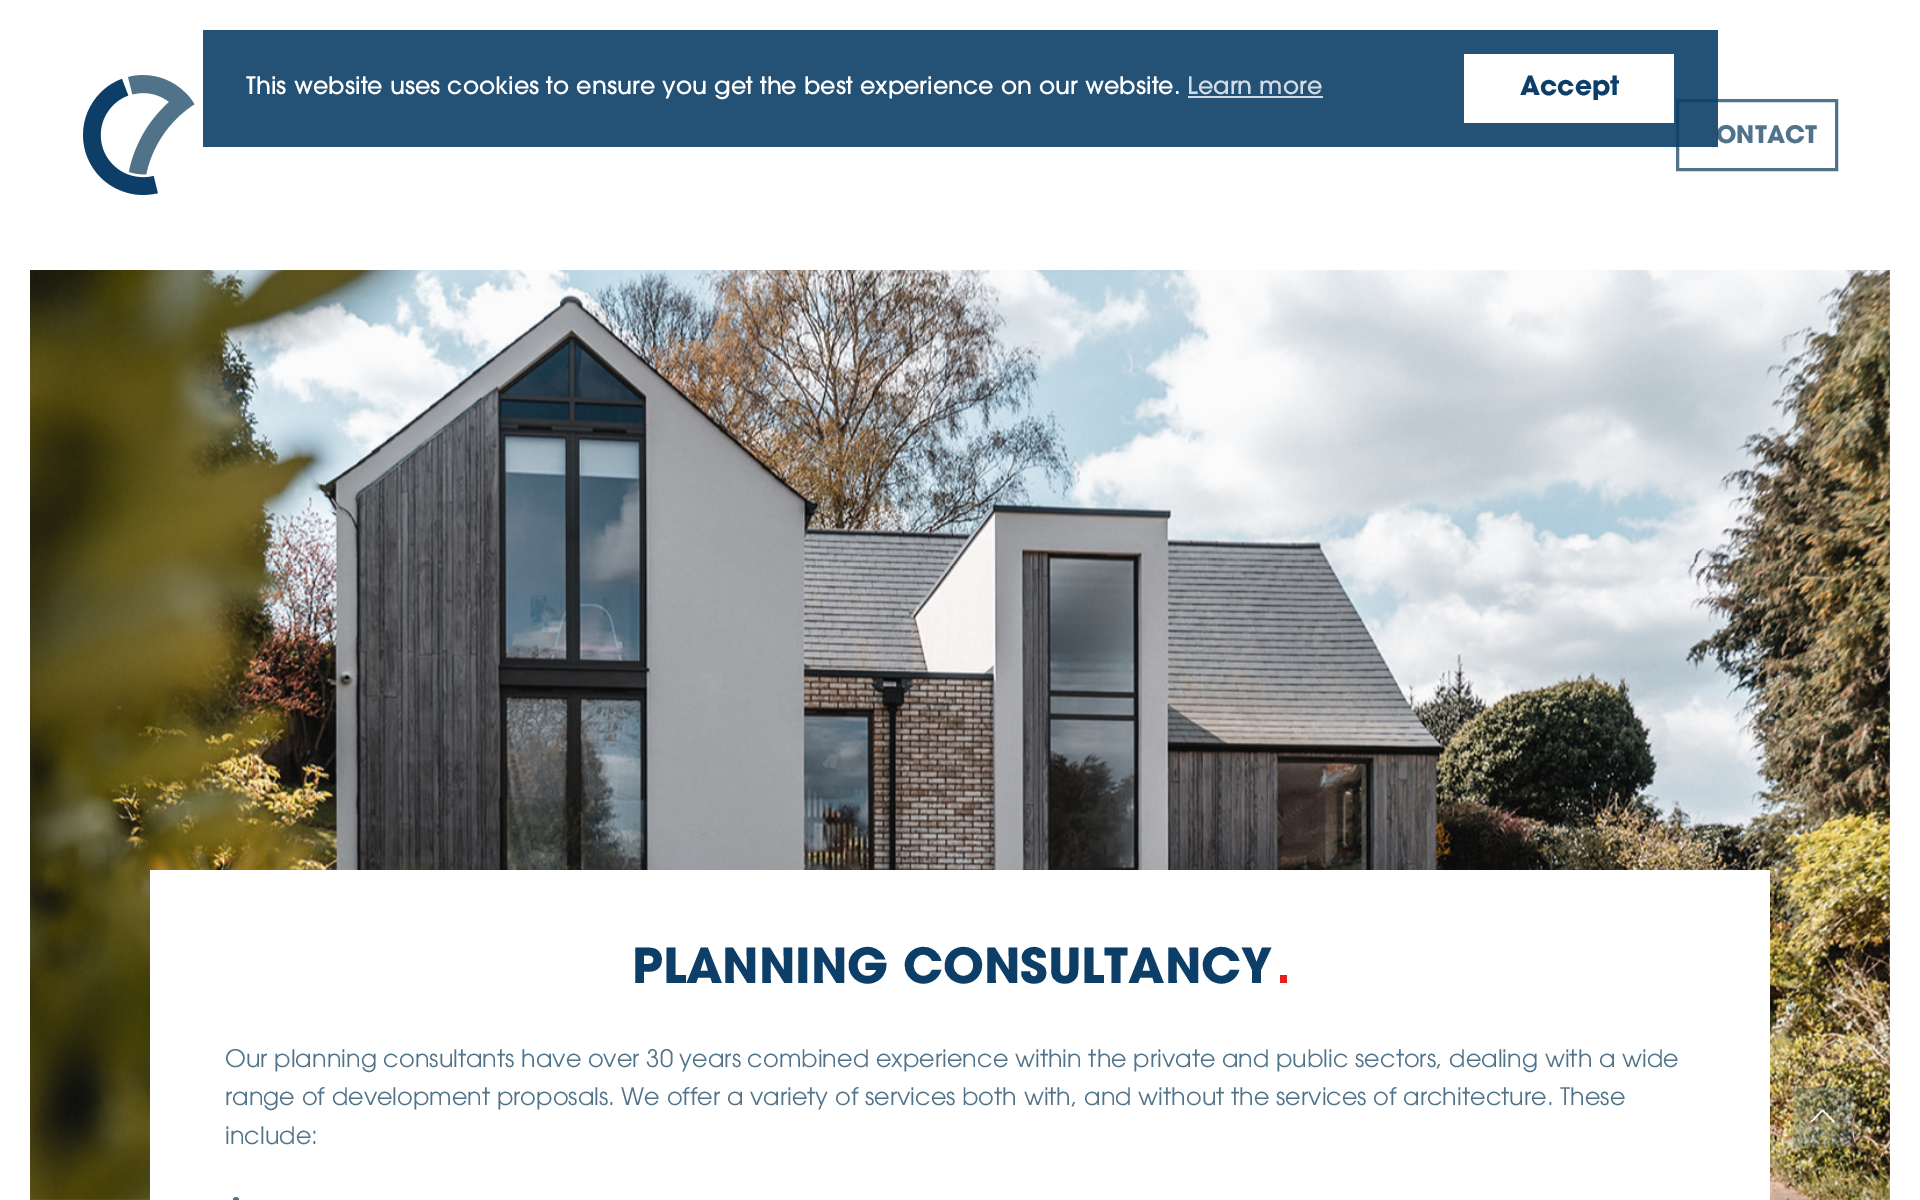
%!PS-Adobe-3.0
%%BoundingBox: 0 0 1920 1200
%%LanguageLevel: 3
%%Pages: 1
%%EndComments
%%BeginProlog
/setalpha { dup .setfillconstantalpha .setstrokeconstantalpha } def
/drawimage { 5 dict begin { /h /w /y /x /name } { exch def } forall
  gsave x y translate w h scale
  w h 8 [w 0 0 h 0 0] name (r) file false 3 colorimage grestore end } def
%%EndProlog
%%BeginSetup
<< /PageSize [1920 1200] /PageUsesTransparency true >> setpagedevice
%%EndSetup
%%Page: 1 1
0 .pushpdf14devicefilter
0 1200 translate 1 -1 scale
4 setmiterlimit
1 setgray
0 0 1920 1200 rectfill
(images/1.raw) 83 75 112 120 drawimage
0.314 0.451 0.541 setrgbcolor
3 setlinewidth
1677.5 100.5 159 69 rectstroke
(images/2.raw) 30 270 1860 930 drawimage
1 setgray
150 870 1620 330 rectfill
0.882 0.137 0.106 setrgbcolor
1280 975 7 8 rectfill
0.314 0.451 0.541 setrgbcolor
newpath 236 1200 3 0 360 arc closepath fill
0.25 setalpha
1793 1088 60 60 rectfill
1 setalpha
(images/3.raw) 1810 1109 25 14 drawimage
/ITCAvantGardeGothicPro-Bold [24 0 0 -24 0 0] selectfont
1716 143 moveto (ONTACT) show
0.9 setalpha
0.047 0.243 0.404 setrgbcolor
203 30 1515 117 rectfill
/ITCAvantGardeGothicPro-Medium [24 0 0 -24 0 0] selectfont
1 setalpha
0.827 0.863 0.894 setrgbcolor
1187 94 moveto (Learn more) show
1188 96 135 2 rectfill
1 setgray
1464 54 210 69 rectfill
/ITCAvantGardeGothicPro-Bold [26.5 0 0 -26.5 0 0] selectfont
0.047 0.243 0.404 setrgbcolor
1520 95 moveto (Accept) show
/ITCAvantGardeGothicPro-Medium [24 0 0 -24 0 0] selectfont
1 setgray
246 94 moveto (This website uses cookies to ensure you get the best experience on our website.) show
/ITCAvantGardeGothicPro-Bold [48 0 0 -48 0 0] selectfont
0.047 0.243 0.404 setrgbcolor
632 983 moveto (PLANNING CONSULTANCY) show
/ITCAvantGardeGothicPro-Light [24 0 0 -24 0 0] selectfont
0.314 0.451 0.541 setrgbcolor
225 1067 moveto (Our planning consultants have over 30 years combined experience within the private and public sectors, dealing with a wide) show
225 1105 moveto (range of development proposals. We offer a variety of services both with, and without the services of architecture. These) show
225 1144 moveto (include:) show
.poppdf14devicefilter showpage
%%EOF
